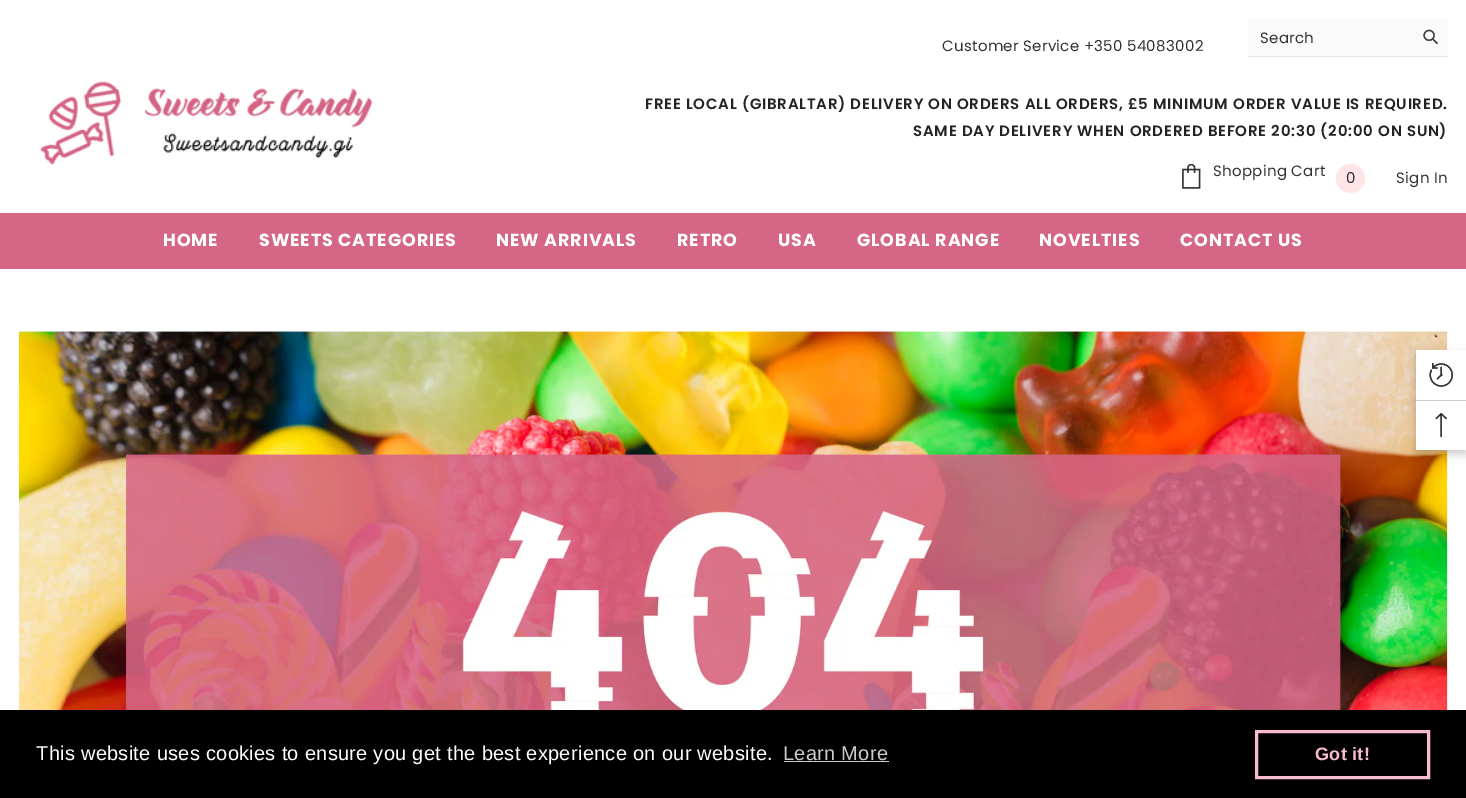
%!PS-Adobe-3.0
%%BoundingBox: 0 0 1466 798
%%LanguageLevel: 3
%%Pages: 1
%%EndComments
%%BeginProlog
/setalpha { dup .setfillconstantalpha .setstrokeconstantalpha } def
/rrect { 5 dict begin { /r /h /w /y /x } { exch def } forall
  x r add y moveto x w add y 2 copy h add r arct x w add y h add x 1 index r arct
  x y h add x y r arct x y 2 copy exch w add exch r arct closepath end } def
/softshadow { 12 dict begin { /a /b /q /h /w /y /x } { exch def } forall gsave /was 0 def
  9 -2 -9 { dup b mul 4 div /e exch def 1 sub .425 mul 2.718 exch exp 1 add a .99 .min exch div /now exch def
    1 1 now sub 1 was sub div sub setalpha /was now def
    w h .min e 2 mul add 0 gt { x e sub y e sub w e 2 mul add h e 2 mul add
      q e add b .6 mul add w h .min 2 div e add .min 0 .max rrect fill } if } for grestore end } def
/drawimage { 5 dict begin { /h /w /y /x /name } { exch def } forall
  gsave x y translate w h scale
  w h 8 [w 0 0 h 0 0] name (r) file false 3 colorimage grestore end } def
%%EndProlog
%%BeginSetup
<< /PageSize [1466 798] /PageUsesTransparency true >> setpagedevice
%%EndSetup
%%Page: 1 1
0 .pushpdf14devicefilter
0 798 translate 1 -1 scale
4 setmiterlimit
1 setgray
0 0 1466 798 rectfill
0.98 setgray
1248 19 200 39 rectfill
0.906 setgray
1248 56 200 1 rectfill
(images/1.raw) 1423 29 15 16 drawimage
(images/2.raw) 40 81 333 84 drawimage
(images/3.raw) 1182 164 19 25 drawimage
1 0.898 0.91 setrgbcolor
newpath 1350.5 178.5 14.5 0 360 arc closepath fill
0.839 0.4 0.522 setrgbcolor
0 213 1466 56 rectfill
(images/4.raw) 19 331 1429 379 drawimage
0 setgray
1416 354 50 100 0 4.5 0.2 softshadow
1 setgray
1416 350 50 100 rectfill
(images/5.raw) 1429 363 24 24 drawimage
0.8 setgray
1416 400 50 1 rectfill
(images/6.raw) 1435 413 12 25 drawimage
0 setgray
0 710 1466 88 rectfill
0.8 setgray
784 761 105 1 rectfill
0.973 0.733 0.816 setrgbcolor
3 setlinewidth
1256.5 731.5 172 46 rectstroke
/Poppins-Regular [15 0 0 -15 0 0] selectfont
0.196 setgray
1260 43 moveto 0.3 0 (Search) ashow
942 51 moveto 0.3 0 (Customer Service +350 54083002) ashow
/Poppins-SemiBold [15 0 0 -15 0 0] selectfont
0.137 setgray
645 109 moveto 0.75 0 (FREE LOCAL \(GIBRALTAR\) DELIVERY ON ORDERS ALL ORDERS, £5 MINIMUM ORDER VALUE IS REQUIRED.) ashow
913 136 moveto 0.75 0 (SAME DAY DELIVERY WHEN ORDERED BEFORE 20:30 \(20:00 ON SUN\)) ashow
/Poppins-Regular [15 0 0 -15 0 0] selectfont
0.196 setgray
1213 176 moveto 0.3 0 (Shopping Cart) ashow
1346 183 moveto (0) show
1396 183 moveto 0.3 0 (Sign In) ashow
/Poppins-Bold [17.5 0 0 -17.5 0 0] selectfont
1 setgray
163 246 moveto 0.9 0 (HOME) ashow
259 246 moveto 0.9 0 (SWEETS CATEGORIES) ashow
496 246 moveto 0.9 0 (NEW ARRIVALS) ashow
677 246 moveto 0.9 0 (RETRO) ashow
778 246 moveto 0.9 0 (USA) ashow
857 246 moveto 0.9 0 (GLOBAL RANGE) ashow
1039 246 moveto 0.9 0 (NOVELTIES) ashow
1180 246 moveto 0.9 0 (CONTACT US) ashow
/LiberationSans-Regular [20 0 0 -20 0 0] selectfont
36 760 moveto 0.3 0 (This website uses cookies to ensure you get the best experience on our website.) ashow
0.8 setgray
783 760 moveto 0.3 0 (Learn More) ashow
/LiberationSans-Bold [18 0 0 -18 0 0] selectfont
0.973 0.733 0.816 setrgbcolor
1315 760 moveto 0.3 0 (Got it!) ashow
.poppdf14devicefilter showpage
%%EOF
